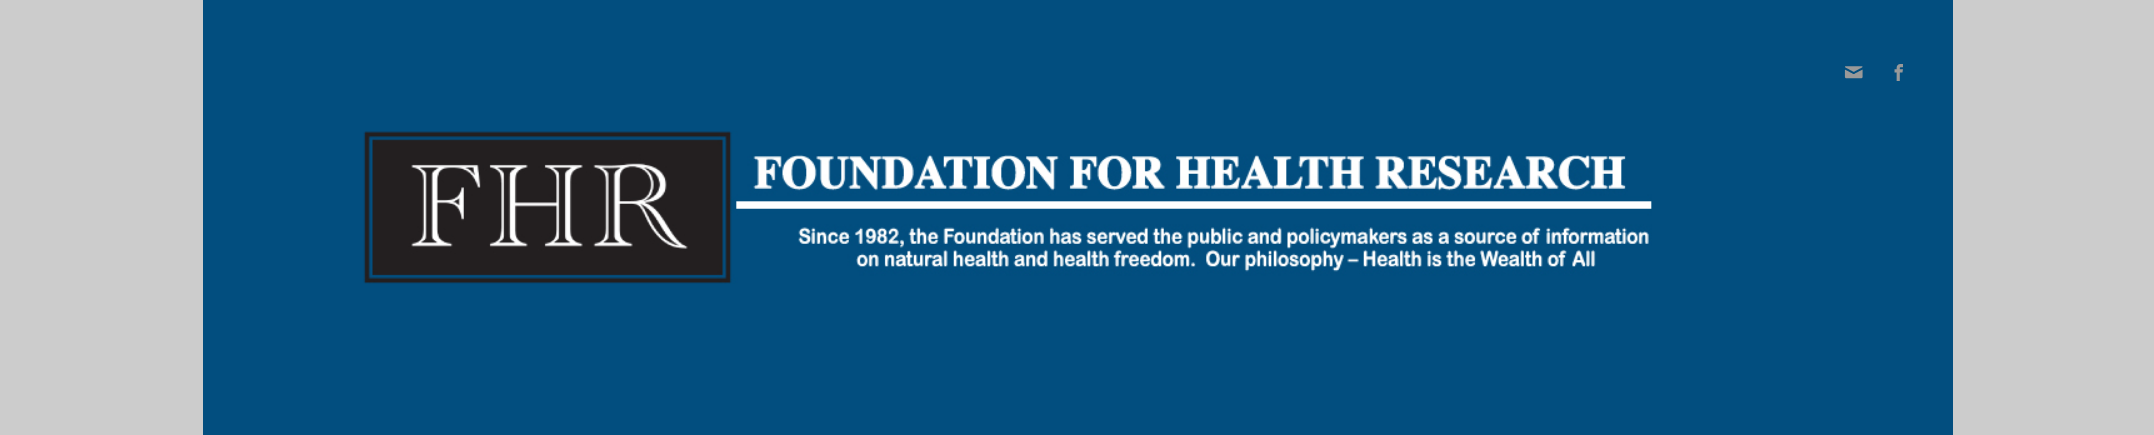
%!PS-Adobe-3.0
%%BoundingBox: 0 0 2154 435
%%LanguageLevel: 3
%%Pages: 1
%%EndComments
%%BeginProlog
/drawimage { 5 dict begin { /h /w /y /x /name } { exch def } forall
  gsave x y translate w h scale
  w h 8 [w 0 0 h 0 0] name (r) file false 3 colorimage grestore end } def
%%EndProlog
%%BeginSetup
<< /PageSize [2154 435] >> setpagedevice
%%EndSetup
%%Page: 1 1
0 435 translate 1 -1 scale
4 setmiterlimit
0.8 setgray
0 0 2154 435 rectfill
0.008 0.306 0.498 setrgbcolor
203 0 1750 435 rectfill
(images/1.raw) 1844 66 19 13 drawimage
(images/2.raw) 1894 64 9 17 drawimage
(images/3.raw) 363 131 1289 153 drawimage
showpage
%%EOF
